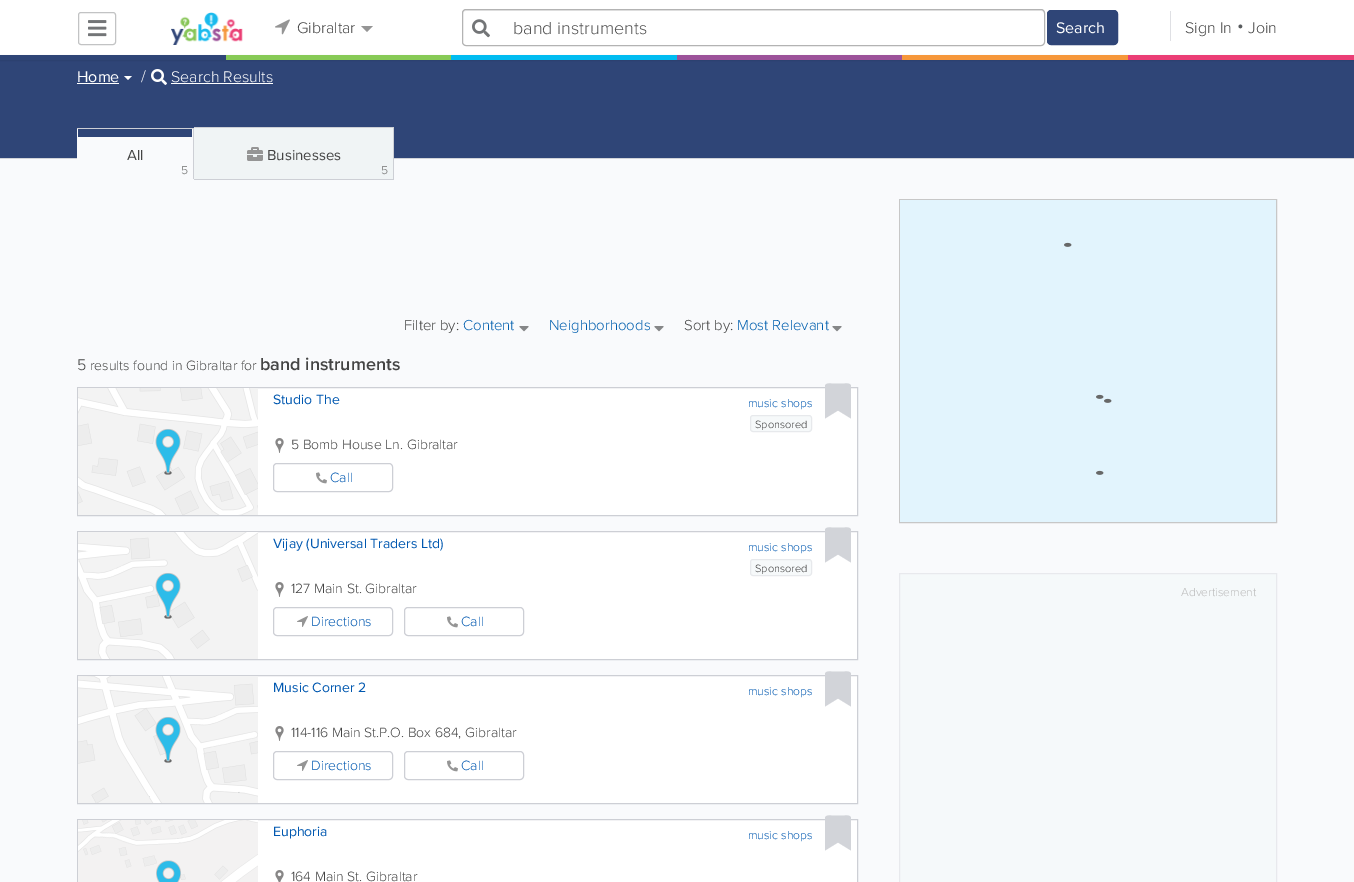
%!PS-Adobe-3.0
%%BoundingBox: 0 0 1354 882
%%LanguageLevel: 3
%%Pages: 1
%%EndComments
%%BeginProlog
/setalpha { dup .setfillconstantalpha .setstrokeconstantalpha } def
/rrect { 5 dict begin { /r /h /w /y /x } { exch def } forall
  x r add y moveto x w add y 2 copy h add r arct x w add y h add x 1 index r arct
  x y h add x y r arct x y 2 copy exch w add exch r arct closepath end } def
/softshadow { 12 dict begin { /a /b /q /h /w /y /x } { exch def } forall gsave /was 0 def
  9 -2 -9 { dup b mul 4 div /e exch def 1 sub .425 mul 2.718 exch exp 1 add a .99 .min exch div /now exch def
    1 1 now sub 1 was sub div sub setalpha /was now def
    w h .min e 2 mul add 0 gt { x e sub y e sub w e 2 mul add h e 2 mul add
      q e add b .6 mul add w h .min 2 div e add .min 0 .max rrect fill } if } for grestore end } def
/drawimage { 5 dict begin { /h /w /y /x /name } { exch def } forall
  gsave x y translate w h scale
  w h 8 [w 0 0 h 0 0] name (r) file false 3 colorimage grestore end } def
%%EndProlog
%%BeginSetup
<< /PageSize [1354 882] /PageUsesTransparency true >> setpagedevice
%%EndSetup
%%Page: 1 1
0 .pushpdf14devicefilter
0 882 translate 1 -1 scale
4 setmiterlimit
0.976 0.98 0.988 setrgbcolor
0 0 1354 882 rectfill
1 setgray
0 0 1354 55 rectfill
0.761 0.765 0.769 setrgbcolor
78.5 12.5 37 32 2.5 rrect stroke
(images/1.raw) 88 20 19 17 drawimage
(images/2.raw) 171 12 72 33 drawimage
(images/3.raw) 275 19 15 16 drawimage
0.584 setgray
newpath 361 26 moveto 373 26 lineto 367 32 lineto closepath fill
0.925 setgray
newpath 466 11 moveto 1041 11 lineto 1043 11 1044 12 1044 14 curveto 1044 13 lineto 1044 11 1043 10 1041 10 curveto 466 10 lineto 464 10 463 11 463 13 curveto 463 14 lineto 463 12 464 11 466 11 curveto closepath fill
0.702 setgray
462.5 9.5 582 36 3.5 rrect stroke
(images/4.raw) 472 19 18 19 drawimage
0.184 0.271 0.467 setrgbcolor
1047.5 10.5 70 34 3.5 rrect gsave fill grestore
stroke
0.875 0.878 0.894 setrgbcolor
1170 11 1 30 rectfill
0.184 0.271 0.467 setrgbcolor
0 60 1354 98 rectfill
0 setgray
0 56 1354 5 0 1 0.1 softshadow
0.922 0.243 0.463 setrgbcolor
1128 55 226 5 rectfill
0.184 0.271 0.467 setrgbcolor
0 55 226 5 rectfill
0.529 0.792 0.337 setrgbcolor
226 55 225 5 rectfill
0 0.737 0.945 setrgbcolor
451 55 226 5 rectfill
0.612 0.322 0.604 setrgbcolor
677 55 225 5 rectfill
0.965 0.592 0.227 setrgbcolor
902 55 226 5 rectfill
0.82 0.827 0.847 setrgbcolor
0 158 1354 1 rectfill
1 setgray
77 83 42 1 rectfill
newpath 124 76 moveto 132 76 lineto 128 80 lineto closepath fill
(images/5.raw) 151 69 16 16 drawimage
171 83 102 1 rectfill
0.976 0.98 0.988 setrgbcolor
77 129 116 30 rectfill
0.804 0.812 0.835 setrgbcolor
77 128 117 1 rectfill
193 128 1 52 rectfill
0.976 0.98 0.988 setrgbcolor
193 179 1 1 rectfill
0.184 0.271 0.467 setrgbcolor
78 129 114 8 rectfill
0.941 0.957 0.961 setrgbcolor
194 128 199 51 rectfill
0.804 0.812 0.835 setrgbcolor
194 127 200 1 rectfill
393 127 1 53 rectfill
194 179 200 1 rectfill
(images/6.raw) 247 147 16 14 drawimage
(images/7.raw) 519 326 10 6 drawimage
(images/7.raw) 654 326 10 6 drawimage
(images/7.raw) 832 326 10 6 drawimage
1 setgray
258 388 599 127 rectfill
0.804 0.812 0.835 setrgbcolor
77.5 387.5 780 128 rectstroke
(images/8.raw) 78 388 180 127 drawimage
0.824 0.831 0.851 setrgbcolor
newpath 825 418.5 moveto 825 386 lineto 825.5 383 829 383.5 831.5 383.5 curveto 844.5 383.5 lineto 847 383.5 850.5 383 851 386 curveto 851 418.5 lineto 838 410.5 lineto closepath fill
0.965 0.976 0.98 setrgbcolor
750.5 415.5 61 16 2.5 rrect gsave fill grestore
0.906 0.914 0.925 setrgbcolor
stroke
(images/9.raw) 275 438 9 15 drawimage
0.804 0.812 0.835 setrgbcolor
273.5 463.5 119 28 3.5 rrect stroke
(images/10.raw) 316 472 11 12 drawimage
1 setgray
258 532 599 127 rectfill
0.804 0.812 0.835 setrgbcolor
77.5 531.5 780 128 rectstroke
(images/11.raw) 78 532 180 127 drawimage
0.824 0.831 0.851 setrgbcolor
newpath 825 562.5 moveto 825 530 lineto 825.5 527 829 527.5 831.5 527.5 curveto 844.5 527.5 lineto 847 527.5 850.5 527 851 530 curveto 851 562.5 lineto 838 554.5 lineto closepath fill
0.965 0.976 0.98 setrgbcolor
750.5 559.5 61 16 2.5 rrect gsave fill grestore
0.906 0.914 0.925 setrgbcolor
stroke
(images/9.raw) 275 582 9 15 drawimage
0.804 0.812 0.835 setrgbcolor
273.5 607.5 119 28 3.5 rrect stroke
(images/12.raw) 297 616 11 11 drawimage
404.5 607.5 119 28 3.5 rrect stroke
(images/10.raw) 447 616 11 12 drawimage
1 setgray
258 676 599 127 rectfill
0.804 0.812 0.835 setrgbcolor
77.5 675.5 780 128 rectstroke
(images/13.raw) 78 676 180 127 drawimage
0.824 0.831 0.851 setrgbcolor
newpath 825 706.5 moveto 825 674 lineto 825.5 671 829 671.5 831.5 671.5 curveto 844.5 671.5 lineto 847 671.5 850.5 671 851 674 curveto 851 706.5 lineto 838 698.5 lineto closepath fill
(images/9.raw) 275 726 9 15 drawimage
0.804 0.812 0.835 setrgbcolor
273.5 751.5 119 28 3.5 rrect stroke
(images/12.raw) 297 760 11 11 drawimage
404.5 751.5 119 28 3.5 rrect stroke
(images/10.raw) 447 760 11 12 drawimage
1 setgray
258 820 599 62 rectfill
0.804 0.812 0.835 setrgbcolor
77.5 819.5 780 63 rectstroke
(images/14.raw) 78 820 180 62 drawimage
0.824 0.831 0.851 setrgbcolor
newpath 825 850.5 moveto 825 818 lineto 825.5 815 829 815.5 831.5 815.5 curveto 844.5 815.5 lineto 847 815.5 850.5 815 851 818 curveto 851 850.5 lineto 838 842.5 lineto closepath fill
(images/15.raw) 275 870 9 12 drawimage
0.78 setgray
899.5 199.5 377 323 rectstroke
0.886 0.957 0.992 setrgbcolor
900 200 376 322 rectfill
(images/16.raw) 1064 242 8 5 drawimage
(images/16.raw) 1096 394 8 5 drawimage
(images/16.raw) 1104 398 8 5 drawimage
(images/16.raw) 1096 470 8 5 drawimage
0.961 0.976 0.98 setrgbcolor
newpath 899.5 573.5 moveto 1276.5 573.5 lineto 1276.5 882.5 lineto 899.5 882.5 lineto closepath gsave fill grestore
0.91 0.914 0.929 setrgbcolor
stroke
/ProximaNova-Light [16 0 0 -16 0 0] selectfont
0.267 setgray
297 33 moveto (Gibraltar) show
/ProximaNova-Light [18 0 0 -18 0 0] selectfont
0.333 setgray
513 34 moveto (band instruments) show
/ProximaNova-Regular [16 0 0 -16 0 0] selectfont
1 setgray
1056 33 moveto (Search) show
/ProximaNova-Light [16 0 0 -16 0 0] selectfont
0.267 setgray
1185 33 moveto (Sign In) show
/ProximaNova-Light [19 0 0 -19 0 0] selectfont
0.345 0.357 0.365 setrgbcolor
1237 31 moveto (•) show
/ProximaNova-Light [16 0 0 -16 0 0] selectfont
0.267 setgray
1248 33 moveto (Join) show
/ProximaNova-Regular [16 0 0 -16 0 0] selectfont
1 setgray
77 82 moveto (Home) show
/ProximaNova-Light [17 0 0 -17 0 0] selectfont
141 82 moveto (/) show
/ProximaNova-Light [16 0 0 -16 0 0] selectfont
171 82 moveto (Search Results) show
/ProximaNova-Regular [15 0 0 -15 0 0] selectfont
0.267 setgray
127 160 moveto (All) show
/ProximaNova-Regular [12 0 0 -12 0 0] selectfont
0.573 0.576 0.576 setrgbcolor
181 174 moveto (5) show
/ProximaNova-Regular [15 0 0 -15 0 0] selectfont
0.267 setgray
267 160 moveto (Businesses) show
/ProximaNova-Regular [12 0 0 -12 0 0] selectfont
0.573 0.576 0.576 setrgbcolor
381 174 moveto (5) show
/ProximaNova-Light [15 0 0 -15 0 0] selectfont
0.267 setgray
404 330 moveto (Filter by:) show
0 0.369 0.682 setrgbcolor
463 330 moveto (Content) show
549 330 moveto (Neighborhoods) show
0.267 setgray
684 330 moveto (Sort by:) show
0 0.369 0.682 setrgbcolor
737 330 moveto (Most Relevant) show
/ProximaNova-Light [16 0 0 -16 0 0] selectfont
0.267 setgray
77 370 moveto (5) show
/ProximaNova-Light [14 0 0 -14 0 0] selectfont
90 370 moveto (results found in Gibraltar for) show
/ProximaNova-SemiBold [18 0 0 -18 0 0] selectfont
260 370 moveto (band instruments) show
/ProximaNova-Regular [14 0 0 -14 0 0] selectfont
0.004 0.345 0.69 setrgbcolor
273 404 moveto (Studio The) show
/ProximaNova-Light [12 0 0 -12 0 0] selectfont
748 407 moveto (music shops) show
/ProximaNova-Light [11 0 0 -11 0 0] selectfont
0.267 setgray
755 428 moveto (Sponsored) show
/ProximaNova-Light [14 0 0 -14 0 0] selectfont
291 449 moveto (5 Bomb House Ln. Gibraltar) show
0.004 0.345 0.69 setrgbcolor
330 482 moveto (Call) show
/ProximaNova-Regular [14 0 0 -14 0 0] selectfont
273 548 moveto (Vijay \(Universal Traders Ltd\)) show
/ProximaNova-Light [12 0 0 -12 0 0] selectfont
748 551 moveto (music shops) show
/ProximaNova-Light [11 0 0 -11 0 0] selectfont
0.267 setgray
755 572 moveto (Sponsored) show
/ProximaNova-Light [14 0 0 -14 0 0] selectfont
291 593 moveto (127 Main St. Gibraltar) show
0.004 0.345 0.69 setrgbcolor
311 626 moveto (Directions) show
461 626 moveto (Call) show
/ProximaNova-Regular [14 0 0 -14 0 0] selectfont
273 692 moveto (Music Corner 2) show
/ProximaNova-Light [12 0 0 -12 0 0] selectfont
748 695 moveto (music shops) show
/ProximaNova-Light [14 0 0 -14 0 0] selectfont
0.267 setgray
291 737 moveto (114-116 Main St.P.O. Box 684, Gibraltar) show
0.004 0.345 0.69 setrgbcolor
311 770 moveto (Directions) show
461 770 moveto (Call) show
/ProximaNova-Regular [14 0 0 -14 0 0] selectfont
273 836 moveto (Euphoria) show
/ProximaNova-Light [12 0 0 -12 0 0] selectfont
748 839 moveto (music shops) show
/ProximaNova-Light [14 0 0 -14 0 0] selectfont
0.267 setgray
291 881 moveto (164 Main St. Gibraltar) show
/ProximaNova-Light [12 0 0 -12 0 0] selectfont
0.733 setgray
1181 596 moveto (Advertisement) show
.poppdf14devicefilter showpage
%%EOF
